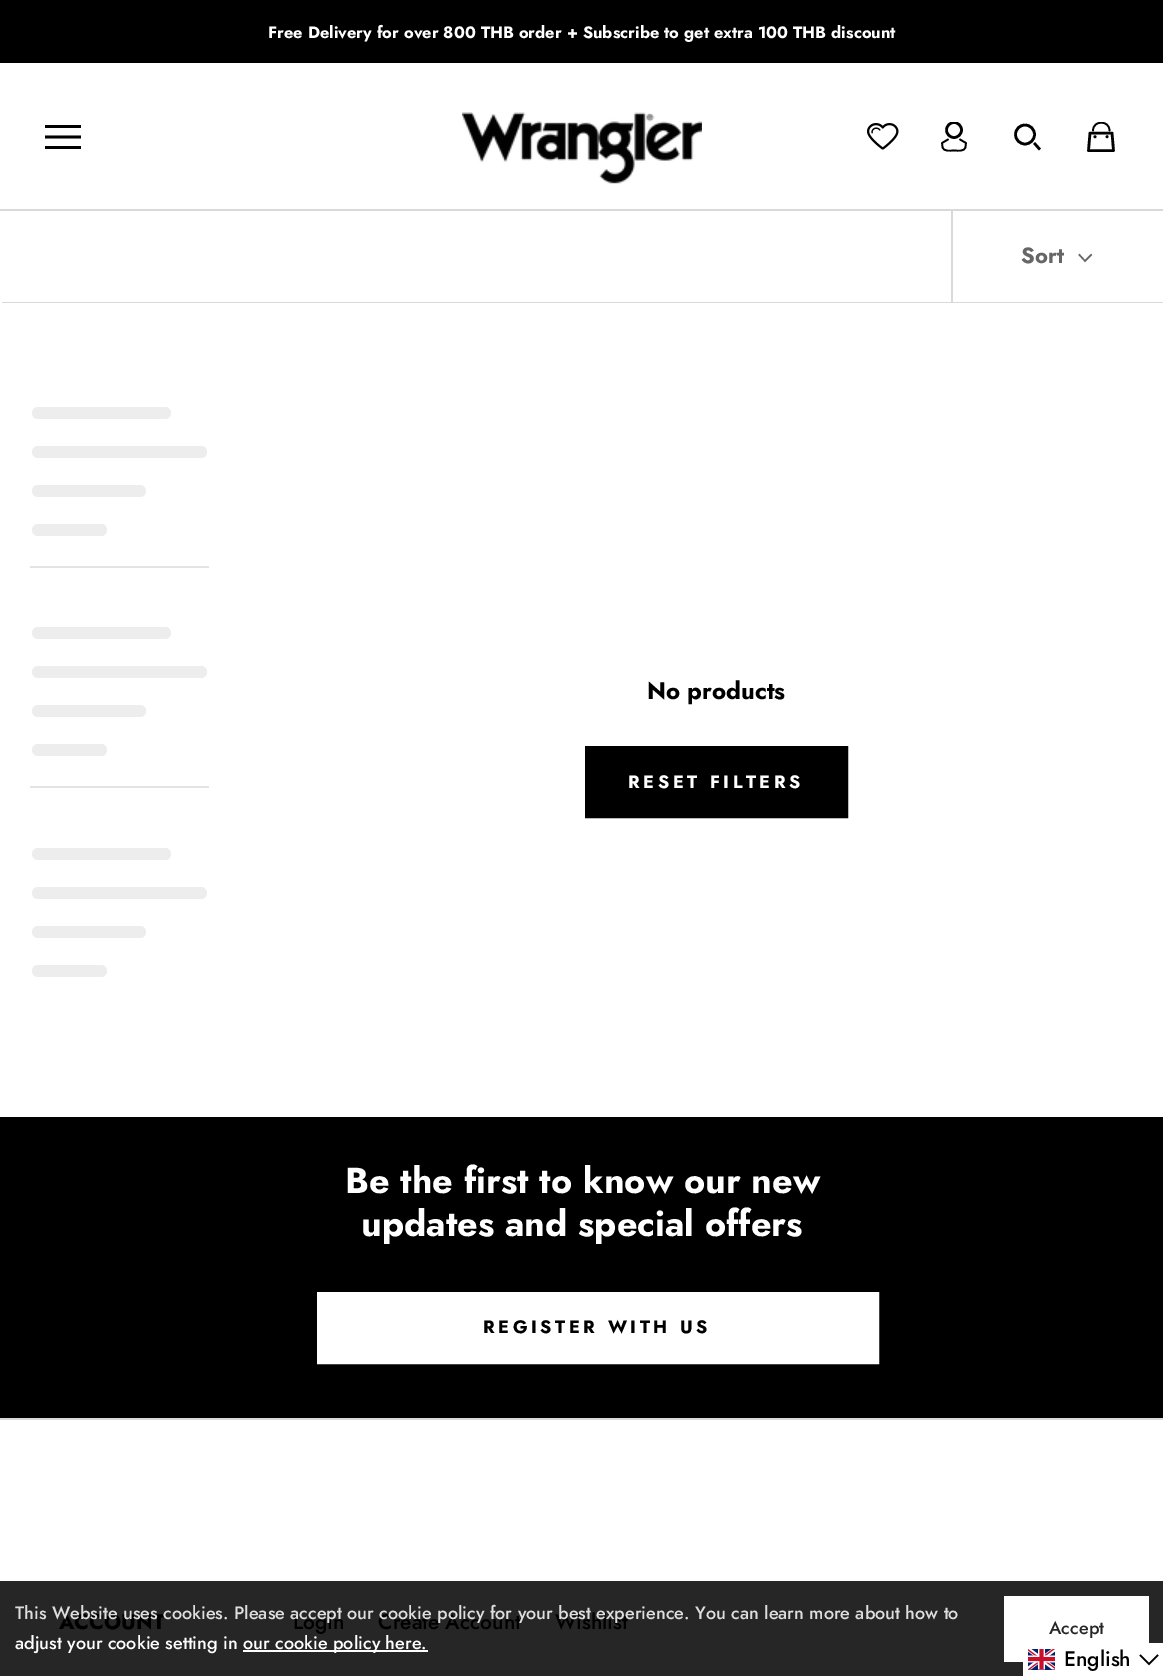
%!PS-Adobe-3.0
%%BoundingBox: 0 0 1163 1676
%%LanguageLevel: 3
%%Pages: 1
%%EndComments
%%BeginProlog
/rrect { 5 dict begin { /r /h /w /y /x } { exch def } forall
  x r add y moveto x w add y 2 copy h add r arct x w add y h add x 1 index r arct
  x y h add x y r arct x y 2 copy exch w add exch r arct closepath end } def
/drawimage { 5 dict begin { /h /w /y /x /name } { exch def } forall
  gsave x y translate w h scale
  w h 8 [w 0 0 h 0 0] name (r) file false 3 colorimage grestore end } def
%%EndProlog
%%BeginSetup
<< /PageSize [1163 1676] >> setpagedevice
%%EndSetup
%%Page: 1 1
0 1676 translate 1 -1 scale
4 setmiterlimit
1 setgray
0 0 1163 1676 rectfill
0.149 setgray
0 1581 1163 95 rectfill
0 setgray
0 0 1163 63 rectfill
0.851 setgray
951 210 2 92 rectfill
0 209 1163 2 rectfill
0 setgray
newpath 45 149 moveto 45 146 lineto 81 146 lineto 81 149 lineto closepath 45 135.5 moveto 81 135.5 lineto 81 138.5 lineto 45 138.5 lineto closepath 45 125 moveto 81 125 lineto 81 128 lineto 45 128 lineto closepath fill
(images/1.raw) 462 112 240 72 drawimage
(images/2.raw) 867 123 32 27 drawimage
gsave
936 122 36 30 rectclip
2.6 setlinewidth
newpath 954 130 7.5 0 360 arc closepath stroke
grestore
1.7 setlinewidth
1 setlinecap
1 setlinejoin
newpath 948 139.5 moveto 942 143 lineto 942.5 147 lineto 943.5 152 950.5 150.5 954 150.5 curveto 957.5 150.5 964.5 152 965.5 147 curveto 966 143 lineto 960 139.5 lineto stroke
2.6 setlinewidth
0 setlinecap
0 setlinejoin
newpath 1025 134.5 9.5 0 360 arc closepath stroke
2 setlinecap
1 setlinejoin
newpath 1035 144 moveto 1039 148.5 lineto stroke
gsave
1083 122 36 30 rectclip
1.7 setlinewidth
1 setlinecap
newpath 1093 130.5 moveto 1093 120 1109.5 120 1109.5 130.5 curveto stroke
grestore
newpath 1113.5 150.5 moveto 1088.5 150.5 lineto 1090 133 lineto 1112 133 lineto closepath stroke
newpath 1095 136.7 1.4 0 360 arc closepath fill
newpath 1107.1 136.7 1.4 0 360 arc closepath fill
0.851 setgray
newpath 2 302 moveto 2 303 lineto 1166 303 lineto 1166 212 lineto 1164 212 lineto 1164 302 lineto closepath fill
0.4 setgray
1.5 setlinewidth
0 setlinejoin
newpath 1091 255 moveto 1085 261 lineto 1079.5 255 lineto stroke
0.929 setgray
32 407 139 12 6 rrect fill
32 446 175 12 6 rrect fill
32 485 114 12 6 rrect fill
32 524 75 12 6 rrect fill
0.89 setgray
30 566 179 2 rectfill
0.929 setgray
32 627 139 12 6 rrect fill
32 666 175 12 6 rrect fill
32 705 114 12 6 rrect fill
32 744 75 12 6 rrect fill
0.89 setgray
30 786 179 2 rectfill
0.929 setgray
32 848 139 12 6 rrect fill
32 887 175 12 6 rrect fill
32 926 114 12 6 rrect fill
32 965 75 12 6 rrect fill
0 setgray
2 setlinewidth
0 setlinecap
586 747 261 70 rectstroke
587 748 259 68 rectfill
0 1117 1163 301 rectfill
1 setgray
318 1293 560 70 rectstroke
319 1294 558 68 rectfill
243 1650 185 2 rectfill
1004 1596 145 66 rectfill
0.851 setgray
0 1418 1163 2 rectfill
1 setgray
1023 1643 140 33 rectfill
(images/3.raw) 1028 1649 27 21 drawimage
0 setgray
1.5 setlinewidth
newpath 1140 1655 moveto 1149 1664 lineto 1158 1655 lineto stroke
/Jost-Bold [16.5 0 0 -16.5 0 0] selectfont
1 setgray
268 38 moveto (Free Delivery for over 800 THB order + Subscribe to get extra 100 THB discount) show
/Jost-Bold [22 0 0 -22 0 0] selectfont
0.4 setgray
1021 263 moveto (Sort) show
/Jost-Bold [24 0 0 -24 0 0] selectfont
0 setgray
647 699 moveto (No products) show
/Jost-Bold [18 0 0 -18 0 0] selectfont
1 setgray
628 788 moveto 3.6 0 (RESET FILTERS) ashow
/Jost-Bold [36 0 0 -36 0 0] selectfont
345 1193 moveto (Be the first to know our new) show
361 1236 moveto (updates and special offers) show
/Jost-Bold [18 0 0 -18 0 0] selectfont
0 setgray
483 1333 moveto 3.6 0 (REGISTER WITH US) ashow
/Jost-Medium [18 0 0 -18 0 0] selectfont
1 setgray
15 1649 moveto (adjust your cookie setting in) show
243 1649 moveto (our cookie policy here.) show
0.149 setgray
1049 1634 moveto (Accept) show
/Jost-Bold [21 0 0 -21 0 0] selectfont
0 setgray
59 1629 moveto (ACCOUNT) show
/Jost-Medium [21 0 0 -21 0 0] selectfont
293 1629 moveto (Login) show
378 1629 moveto (Create Account) show
555 1629 moveto (Wishlist) show
/Jost-Medium [18 0 0 -18 0 0] selectfont
0.871 setgray
15 1619 moveto (This Website uses cookies. Please accept our cookie policy for your best experience. You can learn more about how to) show
/Jost-Medium [21 0 0 -21 0 0] selectfont
0 setgray
1064 1666 moveto (English) show
showpage
%%EOF
